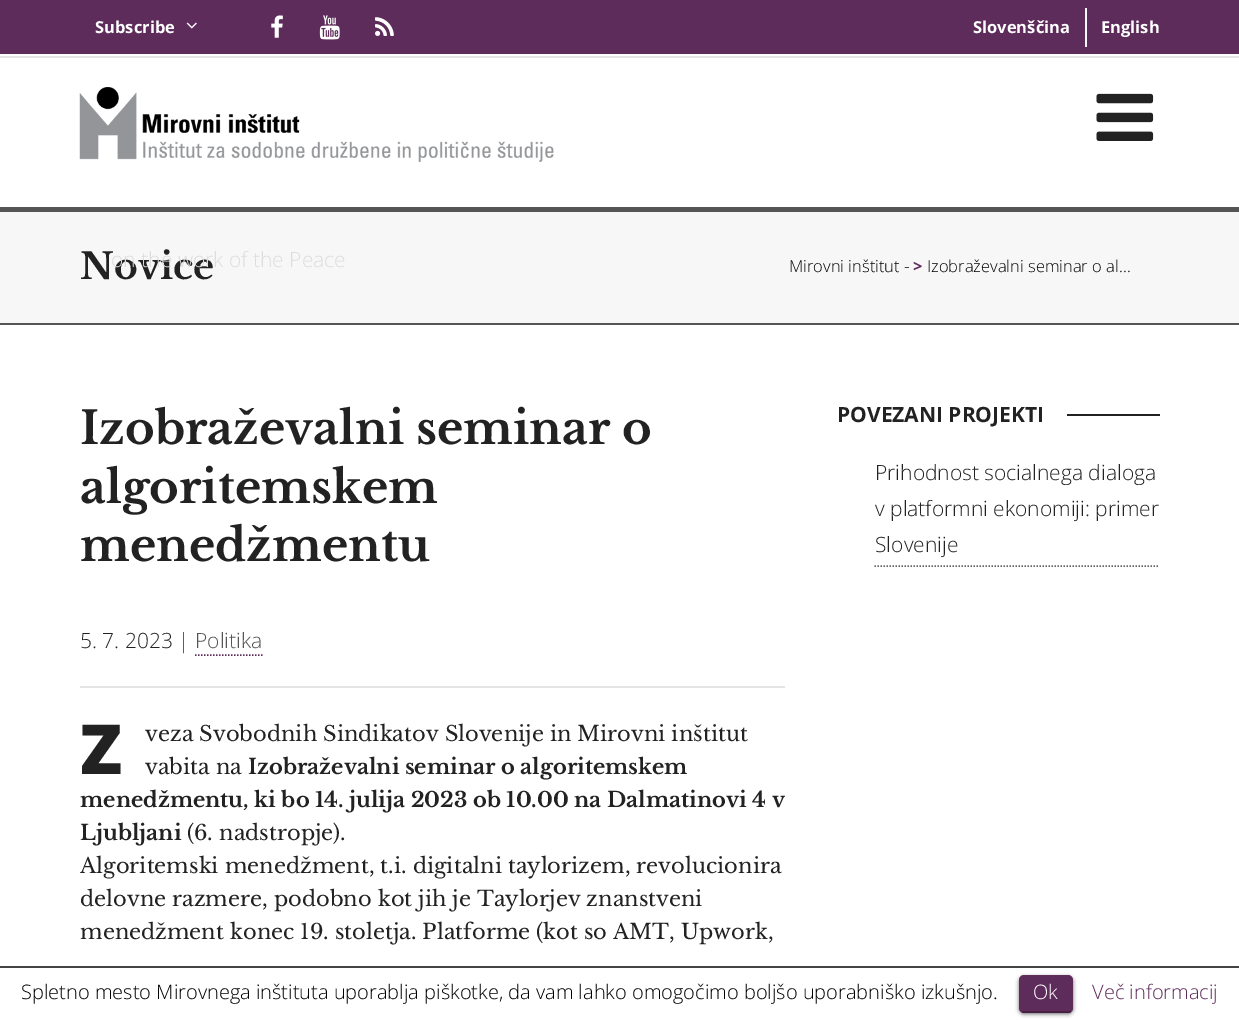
%!PS-Adobe-3.0
%%BoundingBox: 0 0 1239 1020
%%LanguageLevel: 3
%%Pages: 1
%%EndComments
%%BeginProlog
/setalpha { dup .setfillconstantalpha .setstrokeconstantalpha } def
/rrect { 5 dict begin { /r /h /w /y /x } { exch def } forall
  x r add y moveto x w add y 2 copy h add r arct x w add y h add x 1 index r arct
  x y h add x y r arct x y 2 copy exch w add exch r arct closepath end } def
/softshadow { 12 dict begin { /a /b /q /h /w /y /x } { exch def } forall gsave /was 0 def
  9 -2 -9 { dup b mul 4 div /e exch def 1 sub .425 mul 2.718 exch exp 1 add a .99 .min exch div /now exch def
    1 1 now sub 1 was sub div sub setalpha /was now def
    w h .min e 2 mul add 0 gt { x e sub y e sub w e 2 mul add h e 2 mul add
      q e add b .6 mul add w h .min 2 div e add .min 0 .max rrect fill } if } for grestore end } def
/drawimage { 5 dict begin { /h /w /y /x /name } { exch def } forall
  gsave x y translate w h scale
  w h 8 [w 0 0 h 0 0] name (r) file false 3 colorimage grestore end } def
%%EndProlog
%%BeginSetup
<< /PageSize [1239 1020] /PageUsesTransparency true >> setpagedevice
%%EndSetup
%%Page: 1 1
0 .pushpdf14devicefilter
0 1020 translate 1 -1 scale
4 setmiterlimit
1 setgray
0 0 1239 1020 rectfill
0.369 0.173 0.357 setrgbcolor
0 0 1239 54 rectfill
(images/1.raw) 271 15 12 23 drawimage
(images/2.raw) 319 15 21 25 drawimage
(images/3.raw) 375 17 19 19 drawimage
(images/4.raw) 186 22 11 7 drawimage
0.969 setgray
1085 8 2 39 rectfill
0.894 setgray
0 56 1239 2 rectfill
(images/5.raw) 79 87 475 75 drawimage
(images/6.raw) 1096 93 58 48 drawimage
0.969 setgray
0 212 1239 111 rectfill
0.333 setgray
0 207 1239 5 rectfill
0 323 1239 2 rectfill
0.894 setgray
80 686 705 2 rectfill
0.369 0.173 0.357 setrgbcolor
1.5 setlinewidth
[1.5 1.5] 0 setdash
newpath 195 655 moveto 262.5 655 lineto stroke
0.133 setgray
1067 414 93 2 rectfill
0.388 0.392 0.4 setrgbcolor
newpath 874.5 566 moveto 1159.5 566 lineto stroke
0.267 setgray
0 966 1239 2 rectfill
0 setgray
1019 977 54 37 5 2 0.6 softshadow
0.369 0.173 0.357 setrgbcolor
1019 975 54 38 5 rrect fill
0.25 setalpha
0 setgray
1022 1011 49 2 rectfill
/OpenSans-Bold [16.5 0 0 -16.5 0 0] selectfont
1 setalpha
1 setgray
95 33 moveto (Subscribe) show
973 33 moveto (Slovenščina) show
1101 33 moveto (English) show
/LibreBaskerville-Bold [36 0 0 -36 0 0] selectfont
0.133 setgray
80 279 moveto (Novice) show
/OpenSans-Light [21 0 0 -21 0 0] selectfont
0.867 setgray
111 267 moveto (on the work of the Peace) show
gsave
789 254 120 22 rectclip
/OpenSans-Light [16.5 0 0 -16.5 0 0] selectfont
0 setgray
789 272 moveto (Mirovni inštitut –) show
grestore
/OpenSans-Bold [16.5 0 0 -16.5 0 0] selectfont
0.369 0.173 0.357 setrgbcolor
913 272 moveto (>) show
/OpenSans-Light [16.5 0 0 -16.5 0 0] selectfont
0 setgray
927 272 moveto (Izobraževalni seminar o al…) show
/LibreBaskerville-Bold [45 0 0 -45 0 0] selectfont
0.133 setgray
80 444 moveto (Izobraževalni seminar o) show
80 503 moveto (algoritemskem) show
80 561 moveto (menedžmentu) show
/OpenSans-Light [21 0 0 -21 0 0] selectfont
80 648 moveto (5. 7. 2023 |) show
0.333 setgray
195 648 moveto (Politika) show
/NotoSans-Black [69 0 0 -69 0 0] selectfont
0.133 setgray
80 774 moveto (Z) show
/LibreBaskerville-Regular [21 0 0 -21 0 0] selectfont
145 741 moveto (veza Svobodnih Sindikatov Slovenije in Mirovni inštitut) show
145 774 moveto (vabita na) show
/LibreBaskerville-Bold [21 0 0 -21 0 0] selectfont
248 774 moveto (Izobraževalni seminar o algoritemskem) show
80 807 moveto (menedžmentu, ki bo 14. julija 2023 ob 10.00 na Dalmatinovi 4 v) show
80 840 moveto (Ljubljani) show
/LibreBaskerville-Regular [21 0 0 -21 0 0] selectfont
187 840 moveto (\(6. nadstropje\).) show
80 873 moveto (Algoritemski menedžment, t.i. digitalni taylorizem, revolucionira) show
80 906 moveto (delovne razmere, podobno kot jih je Taylorjev znanstveni) show
80 939 moveto (menedžment konec 19. stoletja. Platforme \(kot so AMT, Upwork,) show
/OpenSans-Bold [21 0 0 -21 0 0] selectfont
837 422 moveto (POVEZANI PROJEKTI) show
/OpenSans-Light [21 0 0 -21 0 0] selectfont
875 480 moveto (Prihodnost socialnega dialoga) show
875 516 moveto (v platformni ekonomiji: primer) show
875 552 moveto (Slovenije) show
/OpenSans-Light [20 0 0 -20 0 0] selectfont
0 setgray
21 999 moveto (Spletno mesto Mirovnega inštituta uporablja piškotke, da vam lahko omogočimo boljšo uporabniško izkušnjo.) show
1 setgray
1033 999 moveto (Ok) show
0.369 0.173 0.357 setrgbcolor
1092 999 moveto (Več informacij) show
.poppdf14devicefilter showpage
%%EOF
